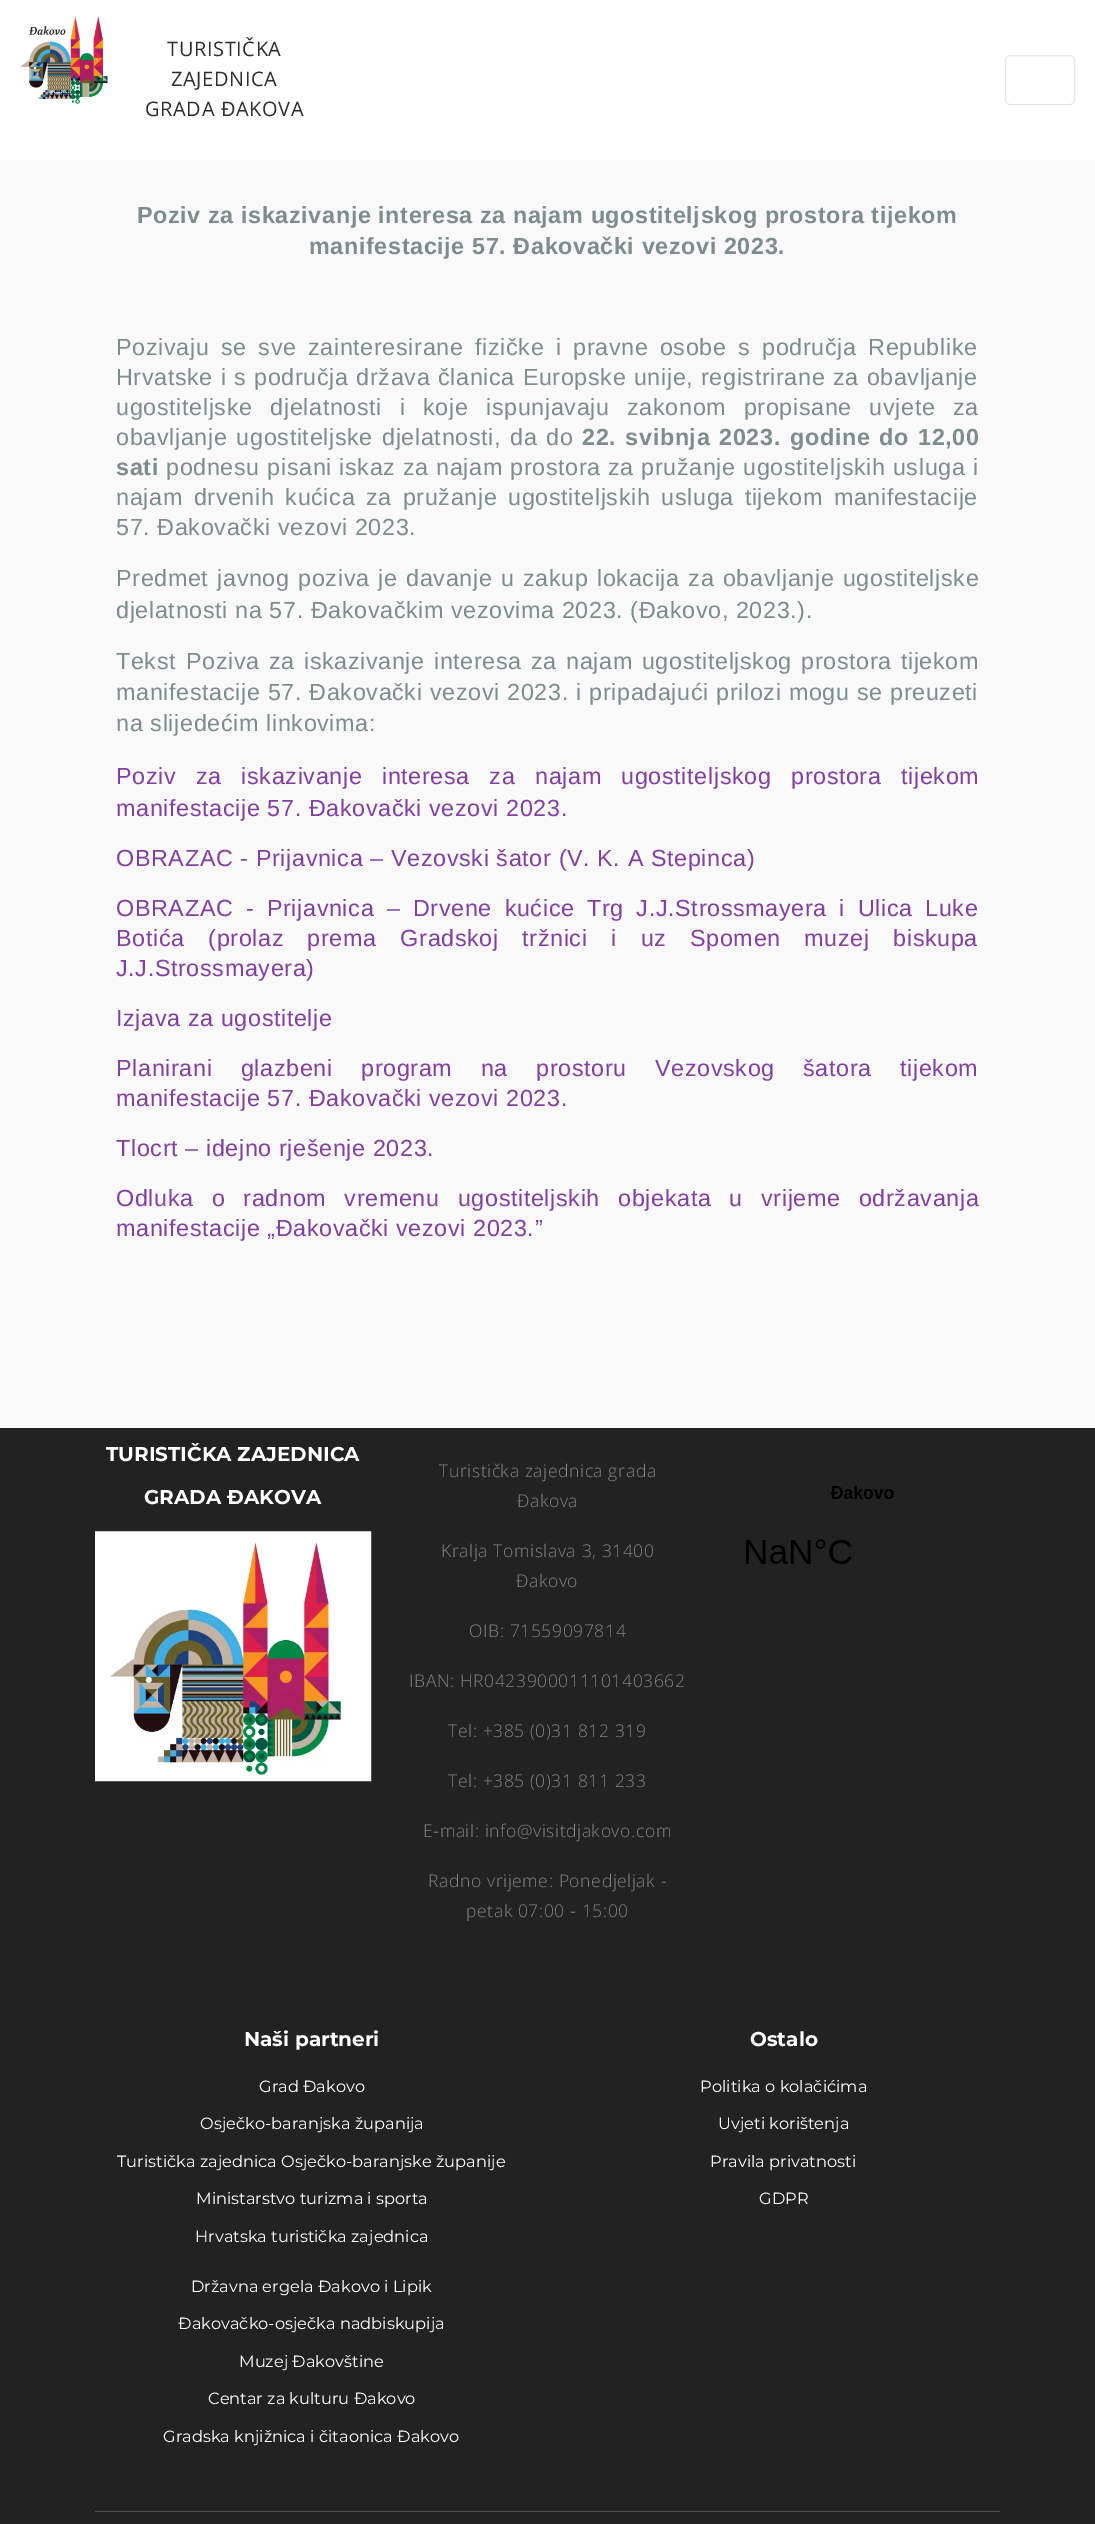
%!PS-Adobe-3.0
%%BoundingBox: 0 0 1095 2524
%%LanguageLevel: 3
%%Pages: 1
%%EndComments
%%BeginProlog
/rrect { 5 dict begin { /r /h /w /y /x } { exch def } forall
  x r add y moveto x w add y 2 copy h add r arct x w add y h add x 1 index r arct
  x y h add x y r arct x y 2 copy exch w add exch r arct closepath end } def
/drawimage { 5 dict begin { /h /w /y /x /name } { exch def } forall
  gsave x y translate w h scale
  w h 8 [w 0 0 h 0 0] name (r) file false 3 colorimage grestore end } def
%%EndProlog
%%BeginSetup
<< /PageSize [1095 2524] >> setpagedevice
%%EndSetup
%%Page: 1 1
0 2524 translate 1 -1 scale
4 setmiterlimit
0.133 setgray
0 0 1095 2524 rectfill
1 setgray
0 0 1095 160 rectfill
(images/1.raw) 20 16 88 88 drawimage
0.902 setgray
1005.5 55.5 69 49 4.5 rrect stroke
0.976 setgray
0 160 1095 1268 rectfill
(images/2.raw) 95 1531 277 251 drawimage
(images/3.raw) 746 1486 148 78 drawimage
0.306 setgray
95 2511 905 1 rectfill
/OpenSans-Regular [20 0 0 -20 0 0] selectfont
0.173 0.18 0.184 setrgbcolor
167 56 moveto 0.62 0 (TURISTIČKA) ashow
171 86 moveto 0.62 0 (ZAJEDNICA) ashow
145 116 moveto 0.62 0 (GRADA ĐAKOVA) ashow
/LiberationSans-Bold [23.35 0 0 -23.35 0 0] selectfont
0.494 0.549 0.553 setrgbcolor
137 223 moveto 0.62 0 (Poziv za iskazivanje interesa za najam ugostiteljskog prostora tijekom) ashow
309 254 moveto 0.62 0 (manifestacije 57. Đakovački vezovi 2023.) ashow
/LiberationSans-Regular [23.35 0 0 -23.35 0 0] selectfont
116 355 moveto 4.5 0 32 0.62 0 (Pozivaju se sve zainteresirane fizičke i pravne osobe s područja Republike) awidthshow
116 385 moveto 0.6 0 32 0.62 0 (Hrvatske i s područja država članica Europske unije, registrirane za obavljanje) awidthshow
116 415 moveto 10.5 0 32 0.62 0 (ugostiteljske djelatnosti i koje ispunjavaju zakonom propisane uvjete za) awidthshow
116 445 moveto 2 0 32 0.62 0 (obavljanje ugostiteljske djelatnosti, da do) awidthshow
/LiberationSans-Bold [23.35 0 0 -23.35 0 0] selectfont
582 445 moveto 2 0 32 0.62 0 (22. svibnja 2023. godine do 12,00) awidthshow
116 475 moveto 0.62 0 (sati) ashow
/LiberationSans-Regular [23.35 0 0 -23.35 0 0] selectfont
166 475 moveto 0.25 0 32 0.62 0 (podnesu pisani iskaz za najam prostora za pružanje ugostiteljskih usluga i) awidthshow
116 505 moveto 3.75 0 32 0.62 0 (najam drvenih kućica za pružanje ugostiteljskih usluga tijekom manifestacije) awidthshow
116 535 moveto 0.62 0 (57. Đakovački vezovi 2023.) ashow
116 586 moveto 1.5 0 32 0.62 0 (Predmet javnog poziva je davanje u zakup lokacija za obavljanje ugostiteljske) awidthshow
116 618 moveto 0.62 0 (djelatnosti na 57. Đakovačkim vezovima 2023. \(Đakovo, 2023.\).) ashow
116 669 moveto 0.62 0 (Tekst) ashow
186 669 moveto 2 0 32 0.62 0 (Poziva za iskazivanje interesa za najam ugostiteljskog prostora tijekom) awidthshow
116 700 moveto 0.25 0 32 0.62 0 (manifestacije 57. Đakovački vezovi 2023. i pripadajući prilozi mogu se preuzeti) awidthshow
116 731 moveto 0.62 0 (na slijedećim linkovima:) ashow
0.518 0.247 0.631 setrgbcolor
116 784 moveto 12.5 0 32 0.62 0 (Poziv za iskazivanje interesa za najam ugostiteljskog prostora tijekom) awidthshow
116 816 moveto 0.62 0 (manifestacije 57. Đakovački vezovi 2023.) ashow
116 866 moveto 0.62 0 (OBRAZAC - Prijavnica – Vezovski šator \(V. K. A Stepinca\)) ashow
116 916 moveto 5.5 0 32 0.62 0 (OBRAZAC - Prijavnica – Drvene kućice Trg J.J.Strossmayera i Ulica Luke) awidthshow
116 946 moveto 16.5 0 32 0.62 0 (Botića \(prolaz prema Gradskoj tržnici i uz Spomen muzej biskupa) awidthshow
116 976 moveto 0.62 0 (J.J.Strossmayera\)) ashow
116 1026 moveto 0.62 0 (Izjava za ugostitelje) ashow
116 1076 moveto 21.25 0 32 0.62 0 (Planirani glazbeni program na prostoru Vezovskog šatora tijekom) awidthshow
116 1106 moveto 0.62 0 (manifestacije 57. Đakovački vezovi 2023.) ashow
116 1156 moveto 0.62 0 (Tlocrt – idejno rješenje 2023.) ashow
116 1206 moveto 11 0 32 0.62 0 (Odluka o radnom vremenu ugostiteljskih objekata u vrijeme održavanja) awidthshow
116 1236 moveto 0.62 0 (manifestacije „Đakovački vezovi 2023.”) ashow
/Montserrat-Bold [20 0 0 -20 0 0] selectfont
1 setgray
106 1461 moveto (TURISTIČKA ZAJEDNICA) show
144 1504 moveto (GRADA ĐAKOVA) show
/OpenSans-Light [17.5 0 0 -17.5 0 0] selectfont
0.522 0.522 0.541 setrgbcolor
439 1477 moveto 0.62 0 (Turistička zajednica grada) ashow
517 1507 moveto 0.62 0 (Đakova) ashow
441 1557 moveto 0.62 0 (Kralja Tomislava 3, 31400) ashow
516 1587 moveto 0.62 0 (Đakovo) ashow
469 1637 moveto 0.62 0 (OIB: 71559097814) ashow
409 1687 moveto 0.62 0 (IBAN: HR0423900011101403662) ashow
448 1737 moveto 0.62 0 (Tel: +385 \(0\)31 812 319) ashow
448 1787 moveto 0.62 0 (Tel: +385 \(0\)31 811 233) ashow
423 1837 moveto 0.62 0 (E-mail: info@visitdjakovo.com) ashow
428 1887 moveto 0.62 0 (Radno vrijeme: Ponedjeljak -) ashow
466 1917 moveto 0.62 0 (petak 07:00 - 15:00) ashow
/Montserrat-Bold [20 0 0 -20 0 0] selectfont
1 setgray
244 2046 moveto (Naši partneri) show
/Montserrat-Regular [16.25 0 0 -16.25 0 0] selectfont
259 2092 moveto (Grad Đakovo) show
200 2129 moveto (Osječko-baranjska županija) show
117 2167 moveto (Turistička zajednica Osječko-baranjske županije) show
196 2204 moveto (Ministarstvo turizma i sporta) show
195 2242 moveto (Hrvatska turistička zajednica) show
191 2292 moveto (Državna ergela Đakovo i Lipik) show
178 2329 moveto (Đakovačko-osječka nadbiskupija) show
239 2367 moveto (Muzej Đakovštine) show
208 2404 moveto (Centar za kulturu Đakovo) show
163 2442 moveto (Gradska knjižnica i čitaonica Đakovo) show
/Montserrat-Bold [20 0 0 -20 0 0] selectfont
750 2046 moveto (Ostalo) show
/Montserrat-Regular [16.25 0 0 -16.25 0 0] selectfont
700 2092 moveto (Politika o kolačićima) show
718 2129 moveto (Uvjeti korištenja) show
710 2167 moveto (Pravila privatnosti) show
759 2204 moveto (GDPR) show
showpage
%%EOF
